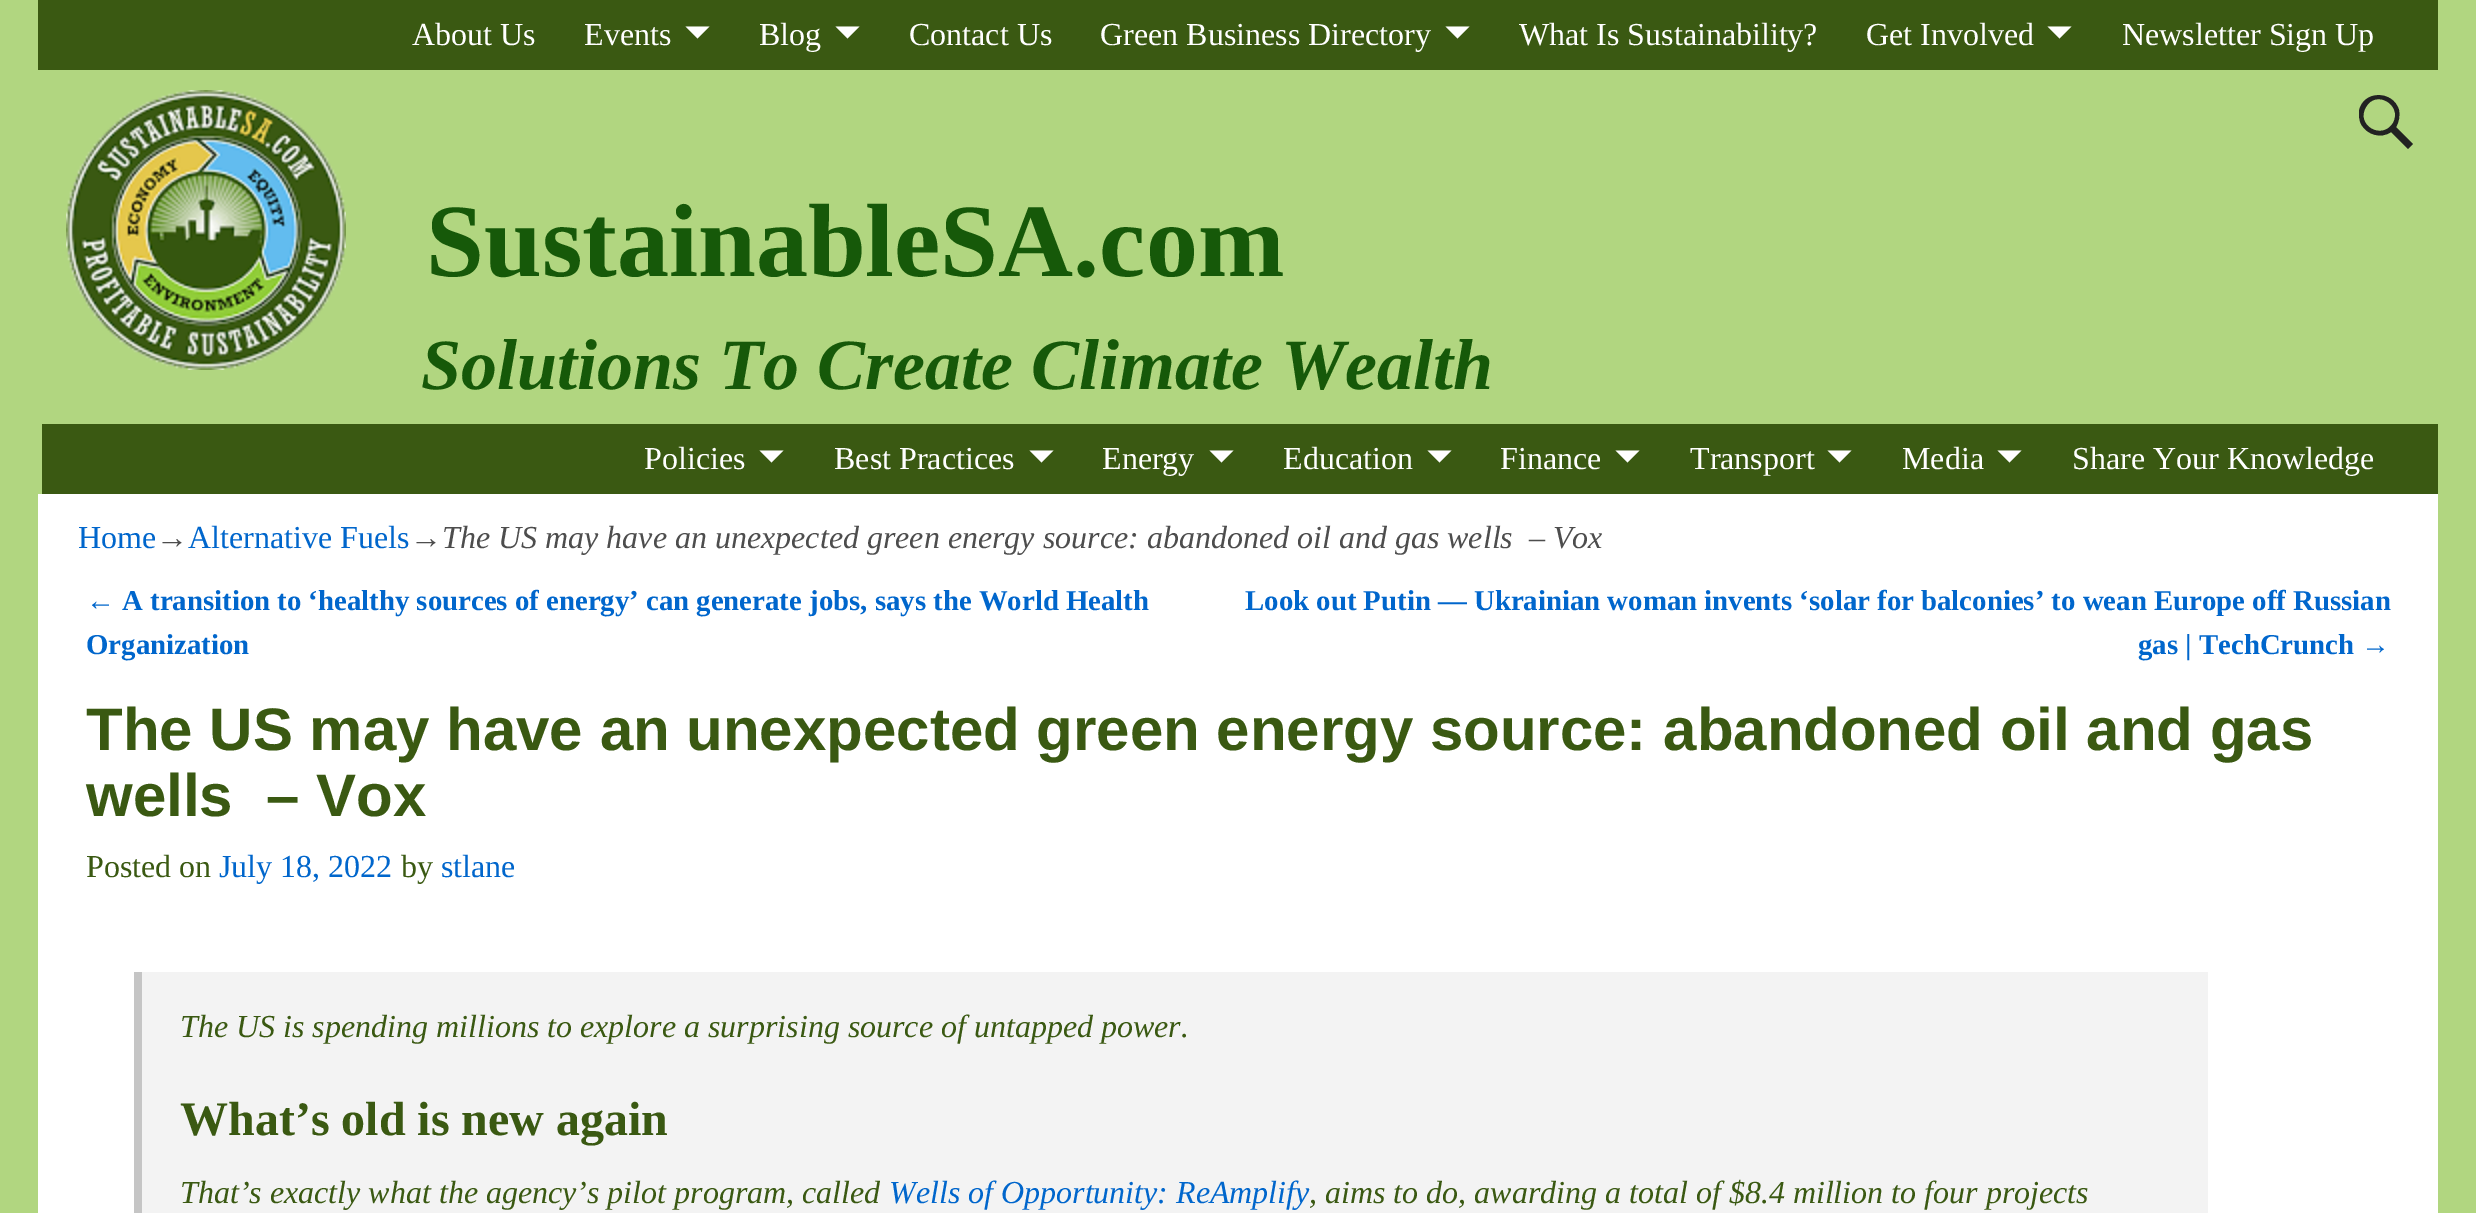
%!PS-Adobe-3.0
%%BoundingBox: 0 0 2476 1213
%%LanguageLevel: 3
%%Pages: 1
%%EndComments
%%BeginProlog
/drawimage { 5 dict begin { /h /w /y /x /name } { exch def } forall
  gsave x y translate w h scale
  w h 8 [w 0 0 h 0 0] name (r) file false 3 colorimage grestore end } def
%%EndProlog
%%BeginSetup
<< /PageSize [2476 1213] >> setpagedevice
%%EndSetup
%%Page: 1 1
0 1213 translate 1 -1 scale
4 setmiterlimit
0.694 0.839 0.502 setrgbcolor
0 0 2476 1213 rectfill
0.227 0.349 0.071 setrgbcolor
38 0 2400 70 rectfill
1 setgray
newpath 685.5 26.5 moveto 709.5 26.5 lineto 697.5 38.5 lineto closepath fill
newpath 835.5 26.5 moveto 859.5 26.5 lineto 847.5 38.5 lineto closepath fill
newpath 1445.5 26.5 moveto 1469.5 26.5 lineto 1457.5 38.5 lineto closepath fill
newpath 2047.5 26.5 moveto 2071.5 26.5 lineto 2059.5 38.5 lineto closepath fill
(images/1.raw) 66 90 280 280 drawimage
0.133 setgray
newpath 2413 144 moveto 2408 149 lineto 2391 132 lineto 2381 139 2367 135 2361 124 curveto 2359 120 2359 116 2359 111 curveto 2363 90 2393 90 2399 110 curveto 2400 116 2399 122 2396 127 curveto closepath 2366 107 moveto 2355 125 2382 141 2393 123 curveto 2403 105 2376 89 2366 107 curveto closepath fill
0.227 0.349 0.071 setrgbcolor
42 424 2396 70 rectfill
1 setgray
newpath 759.5 450.5 moveto 783.5 450.5 lineto 771.5 462.5 lineto closepath fill
newpath 1029.5 450.5 moveto 1053.5 450.5 lineto 1041.5 462.5 lineto closepath fill
newpath 1209.5 450.5 moveto 1233.5 450.5 lineto 1221.5 462.5 lineto closepath fill
newpath 1427.5 450.5 moveto 1451.5 450.5 lineto 1439.5 462.5 lineto closepath fill
newpath 1615.5 450.5 moveto 1639.5 450.5 lineto 1627.5 462.5 lineto closepath fill
newpath 1827.5 450.5 moveto 1851.5 450.5 lineto 1839.5 462.5 lineto closepath fill
newpath 1997.5 450.5 moveto 2021.5 450.5 lineto 2009.5 462.5 lineto closepath fill
38 494 2400 719 rectfill
0.953 setgray
142 972 2066 241 rectfill
0.773 setgray
134 972 8 241 rectfill
/LiberationSerif-Regular [32 0 0 -32 0 0] selectfont
1 setgray
412 45 moveto (About Us) show
584 45 moveto (Events) show
759 45 moveto (Blog) show
909 45 moveto (Contact Us) show
1100 45 moveto (Green Business Directory) show
1519 45 moveto (What Is Sustainability?) show
1866 45 moveto (Get Involved) show
2122 45 moveto (Newsletter Sign Up) show
/LiberationSerif-Bold [104 0 0 -104 0 0] selectfont
0.086 0.349 0.035 setrgbcolor
426 276 moveto (SustainableSA.com) show
/LiberationSerif-BoldItalic [72 0 0 -72 0 0] selectfont
421 389 moveto (Solutions To Create Climate Wealth) show
/LiberationSerif-Regular [32 0 0 -32 0 0] selectfont
1 setgray
644 469 moveto (Policies) show
834 469 moveto (Best Practices) show
1102 469 moveto (Energy) show
1283 469 moveto (Education) show
1500 469 moveto (Finance) show
1690 469 moveto (Transport) show
1902 469 moveto (Media) show
2072 469 moveto (Share Your Knowledge) show
0 0.4 0.8 setrgbcolor
78 548 moveto (Home) show
0.302 setgray
156 548 moveto (→) show
0 0.4 0.8 setrgbcolor
188 548 moveto (Alternative Fuels) show
0.302 setgray
410 548 moveto (→) show
/LiberationSerif-Italic [32 0 0 -32 0 0] selectfont
442 548 moveto (The US may have an unexpected green energy source: abandoned oil and gas wells  – Vox) show
/LiberationSerif-Regular [28.8 0 0 -28.8 0 0] selectfont
0 0.4 0.8 setrgbcolor
86 610 moveto (←) show
/LiberationSerif-Bold [28.8 0 0 -28.8 0 0] selectfont
122 610 moveto (A transition to ‘healthy sources of energy’ can generate jobs, says the World Health) show
86 654 moveto (Organization) show
1245 610 moveto (Look out Putin — Ukrainian woman invents ‘solar for balconies’ to wean Europe off Russian) show
2138 654 moveto (gas | TechCrunch) show
/LiberationSerif-Regular [28.8 0 0 -28.8 0 0] selectfont
2361 654 moveto (→) show
/LiberationSans-Bold [60 0 0 -60 0 0] selectfont
0.227 0.349 0.071 setrgbcolor
86 750 moveto (The US may have an unexpected green energy source: abandoned oil and gas) show
86 816 moveto (wells  – Vox) show
/LiberationSerif-Regular [32 0 0 -32 0 0] selectfont
86 877 moveto (Posted on) show
0 0.4 0.8 setrgbcolor
219 877 moveto (July 18, 2022) show
0.227 0.349 0.071 setrgbcolor
401 877 moveto (by) show
0 0.4 0.8 setrgbcolor
441 877 moveto (stlane) show
/LiberationSerif-Italic [32 0 0 -32 0 0] selectfont
0.227 0.349 0.071 setrgbcolor
180 1037 moveto (The US is spending millions to explore a surprising source of untapped power.) show
/LiberationSerif-Bold [48 0 0 -48 0 0] selectfont
180 1135 moveto (What’s old is new again) show
/LiberationSerif-Italic [32 0 0 -32 0 0] selectfont
180 1203 moveto (That’s exactly what the agency’s pilot program, called) show
0 0.4 0.8 setrgbcolor
889 1203 moveto (Wells of Opportunity: ReAmplify) show
0.227 0.349 0.071 setrgbcolor
1309 1203 moveto (, aims to do, awarding a total of $8.4 million to four projects) show
showpage
%%EOF
